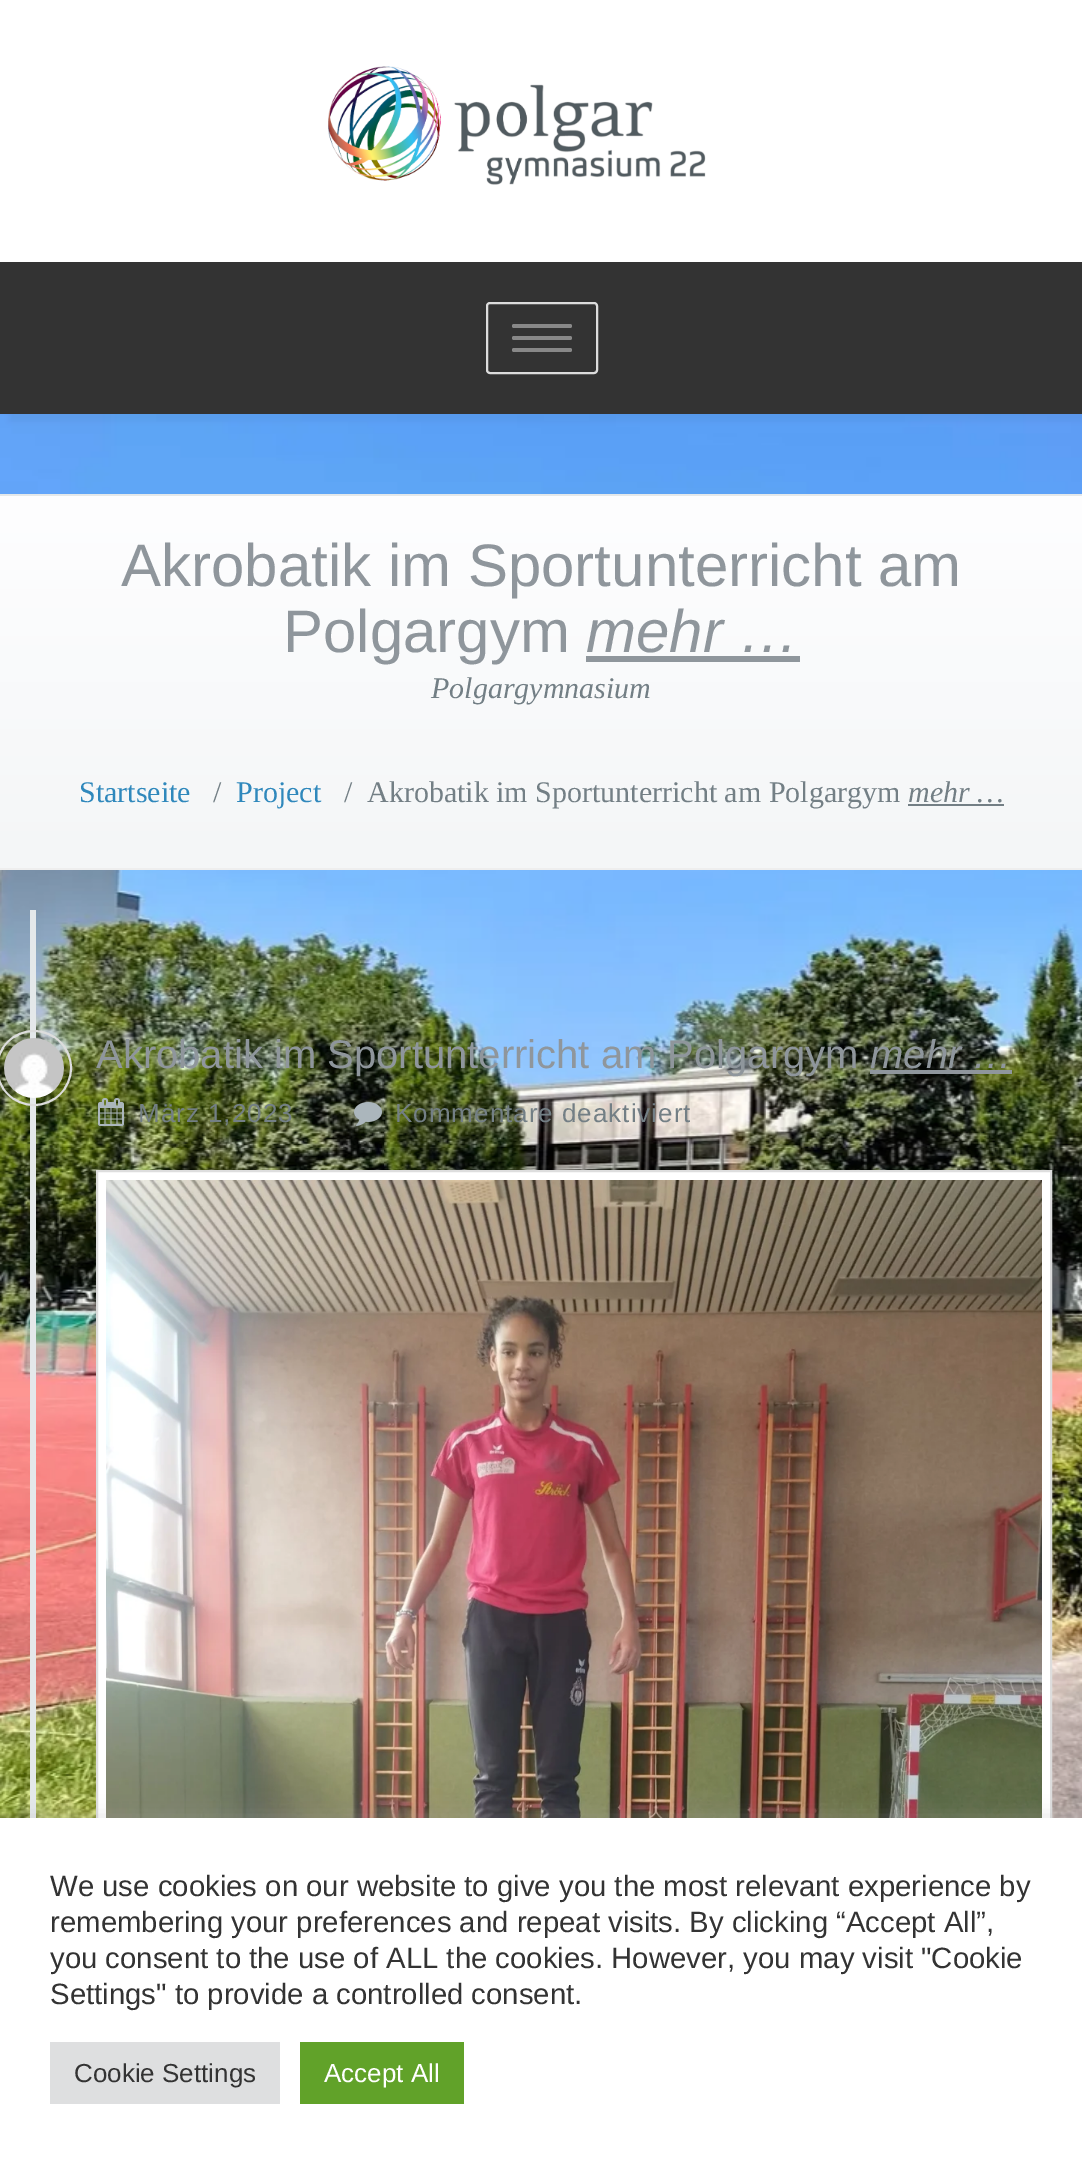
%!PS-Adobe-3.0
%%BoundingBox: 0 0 1082 2164
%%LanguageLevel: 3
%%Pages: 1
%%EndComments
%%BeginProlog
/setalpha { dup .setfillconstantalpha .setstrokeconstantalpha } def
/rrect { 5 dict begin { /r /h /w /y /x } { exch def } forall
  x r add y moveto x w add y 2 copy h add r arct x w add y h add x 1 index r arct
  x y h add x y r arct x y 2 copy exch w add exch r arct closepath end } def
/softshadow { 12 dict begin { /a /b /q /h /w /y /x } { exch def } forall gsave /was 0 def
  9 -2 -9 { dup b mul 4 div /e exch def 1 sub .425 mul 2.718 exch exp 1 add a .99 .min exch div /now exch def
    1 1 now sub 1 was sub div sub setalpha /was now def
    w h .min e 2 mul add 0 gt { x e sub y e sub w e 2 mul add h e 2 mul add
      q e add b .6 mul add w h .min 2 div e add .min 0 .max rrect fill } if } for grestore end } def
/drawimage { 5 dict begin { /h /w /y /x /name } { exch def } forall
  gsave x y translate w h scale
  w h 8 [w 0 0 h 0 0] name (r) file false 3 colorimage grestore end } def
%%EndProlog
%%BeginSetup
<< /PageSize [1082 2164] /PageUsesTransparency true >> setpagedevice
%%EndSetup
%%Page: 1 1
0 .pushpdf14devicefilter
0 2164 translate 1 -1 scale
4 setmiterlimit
1 setgray
0 0 1082 2164 rectfill
(images/1.raw) 0 414 1082 1404 drawimage
(images/2.raw) 328 66 378 119 drawimage
0 setgray
8 270 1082 152 0 3 0.04 softshadow
0.2 setgray
0 262 1082 152 rectfill
0.867 setgray
2 setlinewidth
487 303 110 70 3 rrect stroke
0.533 setgray
512 324 60 4 2 rrect fill
512 336 60 4 2 rrect fill
512 348 60 4 2 rrect fill
gsave newpath 0 496 moveto 1082 496 lineto 1082 868 lineto 0 868 lineto closepath clip newpath
<< /ShadingType 2 /ColorSpace /DeviceRGB /Coords [541 496 541 868] /Extend [true true] /Function << /FunctionType 2 /Domain [0 1] /C0 [0.996 0.996 1] /C1 [0.957 0.965 0.969] /N 1 >> >> shfill grestore
0.894 0.91 0.918 setrgbcolor
0 494 1082 2 rectfill
0.933 setgray
0 868 1082 2 rectfill
0.561 0.588 0.612 setrgbcolor
586 656 214 6 rectfill
0.451 0.498 0.522 setrgbcolor
908 804 96 2 rectfill
0.894 0.91 0.918 setrgbcolor
30 910 6 908 rectfill
0.867 setgray
newpath 34 1068 37 0 360 arc closepath stroke
(images/3.raw) 4 1038 60 60 drawimage
0.561 0.588 0.612 setrgbcolor
870 1070 142 4 rectfill
(images/4.raw) 98 1098 26 28 drawimage
(images/5.raw) 354 1102 28 24 drawimage
1 setgray
98 1172 952 646 rectfill
0.867 setgray
97 1171 954 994 rectstroke
(images/6.raw) 106 1180 936 638 drawimage
0.675 0.671 0.671 setrgbcolor
0 1816 1082 346 0 10 0.3 softshadow
1 setgray
0 1818 1082 346 rectfill
0.871 0.875 0.878 setrgbcolor
50 2042 230 62 rectfill
0.38 0.635 0.161 setrgbcolor
300 2042 164 62 rectfill
/LiberationSans-Regular [60 0 0 -60 0 0] selectfont
0.561 0.588 0.612 setrgbcolor
121 586 moveto (Akrobatik im Sportunterricht am) show
283 652 moveto (Polgargym) show
/LiberationSans-Italic [60 0 0 -60 0 0] selectfont
586 652 moveto (mehr …) show
/LiberationSerif-Italic [30 0 0 -30 0 0] selectfont
0.451 0.498 0.522 setrgbcolor
431 698 moveto (Polgargymnasium) show
/LiberationSerif-Regular [30 0 0 -30 0 0] selectfont
0.184 0.533 0.737 setrgbcolor
79 802 moveto (Startseite) show
0.451 0.498 0.522 setrgbcolor
213 802 moveto (/) show
0.184 0.533 0.737 setrgbcolor
236 802 moveto (Project) show
0.451 0.498 0.522 setrgbcolor
344 802 moveto (/) show
367 802 moveto (Akrobatik im Sportunterricht am Polgargym) show
/LiberationSerif-Italic [30 0 0 -30 0 0] selectfont
908 802 moveto (mehr …) show
/LiberationSans-Regular [40 0 0 -40 0 0] selectfont
0.561 0.588 0.612 setrgbcolor
96 1068 moveto (Akrobatik im Sportunterricht am Polgargym) show
/LiberationSans-Italic [40 0 0 -40 0 0] selectfont
870 1068 moveto (mehr …) show
/LiberationSans-Regular [26 0 0 -26 0 0] selectfont
0.451 0.498 0.522 setrgbcolor
138 1122 moveto 1 0 (März 1,2023) ashow
395 1122 moveto 1 0 (Kommentare deaktiviert) ashow
/LiberationSans-Regular [29.35 0 0 -29.35 0 0] selectfont
0.2 setgray
50 1896 moveto (We use cookies on our website to give you the most relevant experience by) show
50 1932 moveto (remembering your preferences and repeat visits. By clicking “Accept All”,) show
50 1968 moveto (you consent to the use of ALL the cookies. However, you may visit "Cookie) show
50 2004 moveto (Settings" to provide a controlled consent.) show
/LiberationSans-Regular [26 0 0 -26 0 0] selectfont
74 2082 moveto (Cookie Settings) show
1 setgray
324 2082 moveto (Accept All) show
.poppdf14devicefilter showpage
%%EOF
